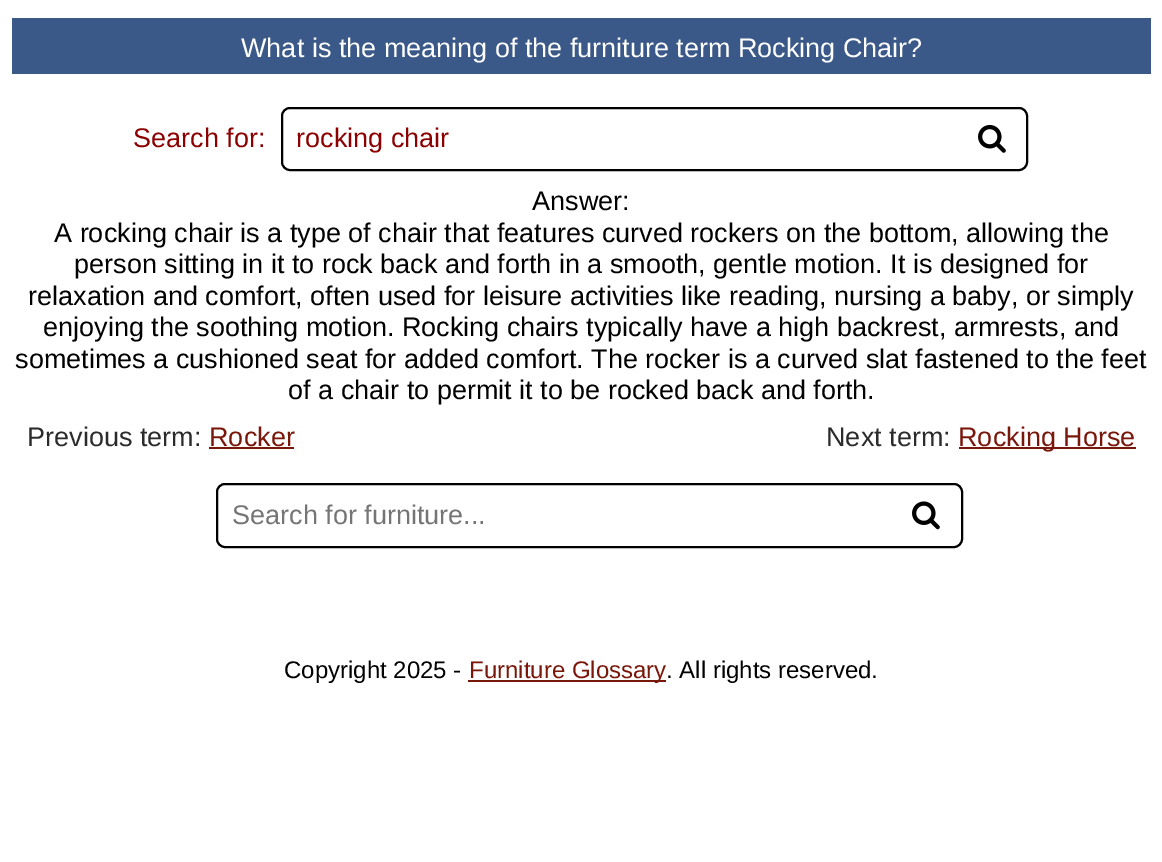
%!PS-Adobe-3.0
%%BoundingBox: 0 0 1162 862
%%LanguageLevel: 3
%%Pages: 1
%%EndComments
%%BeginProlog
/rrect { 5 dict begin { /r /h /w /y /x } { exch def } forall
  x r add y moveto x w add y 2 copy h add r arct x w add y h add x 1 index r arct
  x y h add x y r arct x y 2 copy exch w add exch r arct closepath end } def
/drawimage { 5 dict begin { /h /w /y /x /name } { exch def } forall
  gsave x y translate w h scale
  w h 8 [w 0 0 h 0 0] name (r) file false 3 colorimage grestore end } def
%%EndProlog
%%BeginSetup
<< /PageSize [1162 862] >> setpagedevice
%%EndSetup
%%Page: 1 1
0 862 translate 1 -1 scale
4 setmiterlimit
1 setgray
0 0 1162 862 rectfill
0.231 0.349 0.533 setrgbcolor
12 18 1139 56 rectfill
0 setgray
2 setlinewidth
282 108 745 62 8 rrect stroke
(images/1.raw) 978 124 28 29 drawimage
0.478 0.09 0.043 setrgbcolor
209 447 85 2 rectfill
959 447 177 2 rectfill
0 setgray
217 484 745 63 8 rrect stroke
(images/2.raw) 912 501 28 29 drawimage
0.478 0.09 0.043 setrgbcolor
468 680 198 2 rectfill
/LiberationSans-Regular [27 0 0 -27 0 0] selectfont
1 setgray
241 57 moveto (What is the meaning of the furniture term Rocking Chair?) show
0.545 0 0 setrgbcolor
133 147 moveto (Search for:) show
296 147 moveto (rocking chair) show
0 setgray
532 210 moveto (Answer:) show
54 242 moveto (A rocking chair is a type of chair that features curved rockers on the bottom, allowing the) show
74 273 moveto (person sitting in it to rock back and forth in a smooth, gentle motion. It is designed for) show
28 305 moveto (relaxation and comfort, often used for leisure activities like reading, nursing a baby, or simply) show
43 336 moveto (enjoying the soothing motion. Rocking chairs typically have a high backrest, armrests, and) show
15 368 moveto (sometimes a cushioned seat for added comfort. The rocker is a curved slat fastened to the feet) show
288 399 moveto (of a chair to permit it to be rocked back and forth.) show
0.169 setgray
27 446 moveto (Previous term:) show
0.478 0.09 0.043 setrgbcolor
209 446 moveto (Rocker) show
0.169 setgray
826 446 moveto (Next term:) show
0.478 0.09 0.043 setrgbcolor
958 446 moveto (Rocking Horse) show
0.459 setgray
232 524 moveto (Search for furniture...) show
/LiberationSans-Regular [24 0 0 -24 0 0] selectfont
0 setgray
284 678 moveto (Copyright 2025 -) show
0.478 0.09 0.043 setrgbcolor
469 678 moveto (Furniture Glossary) show
0 setgray
666 678 moveto (. All rights reserved.) show
showpage
%%EOF
